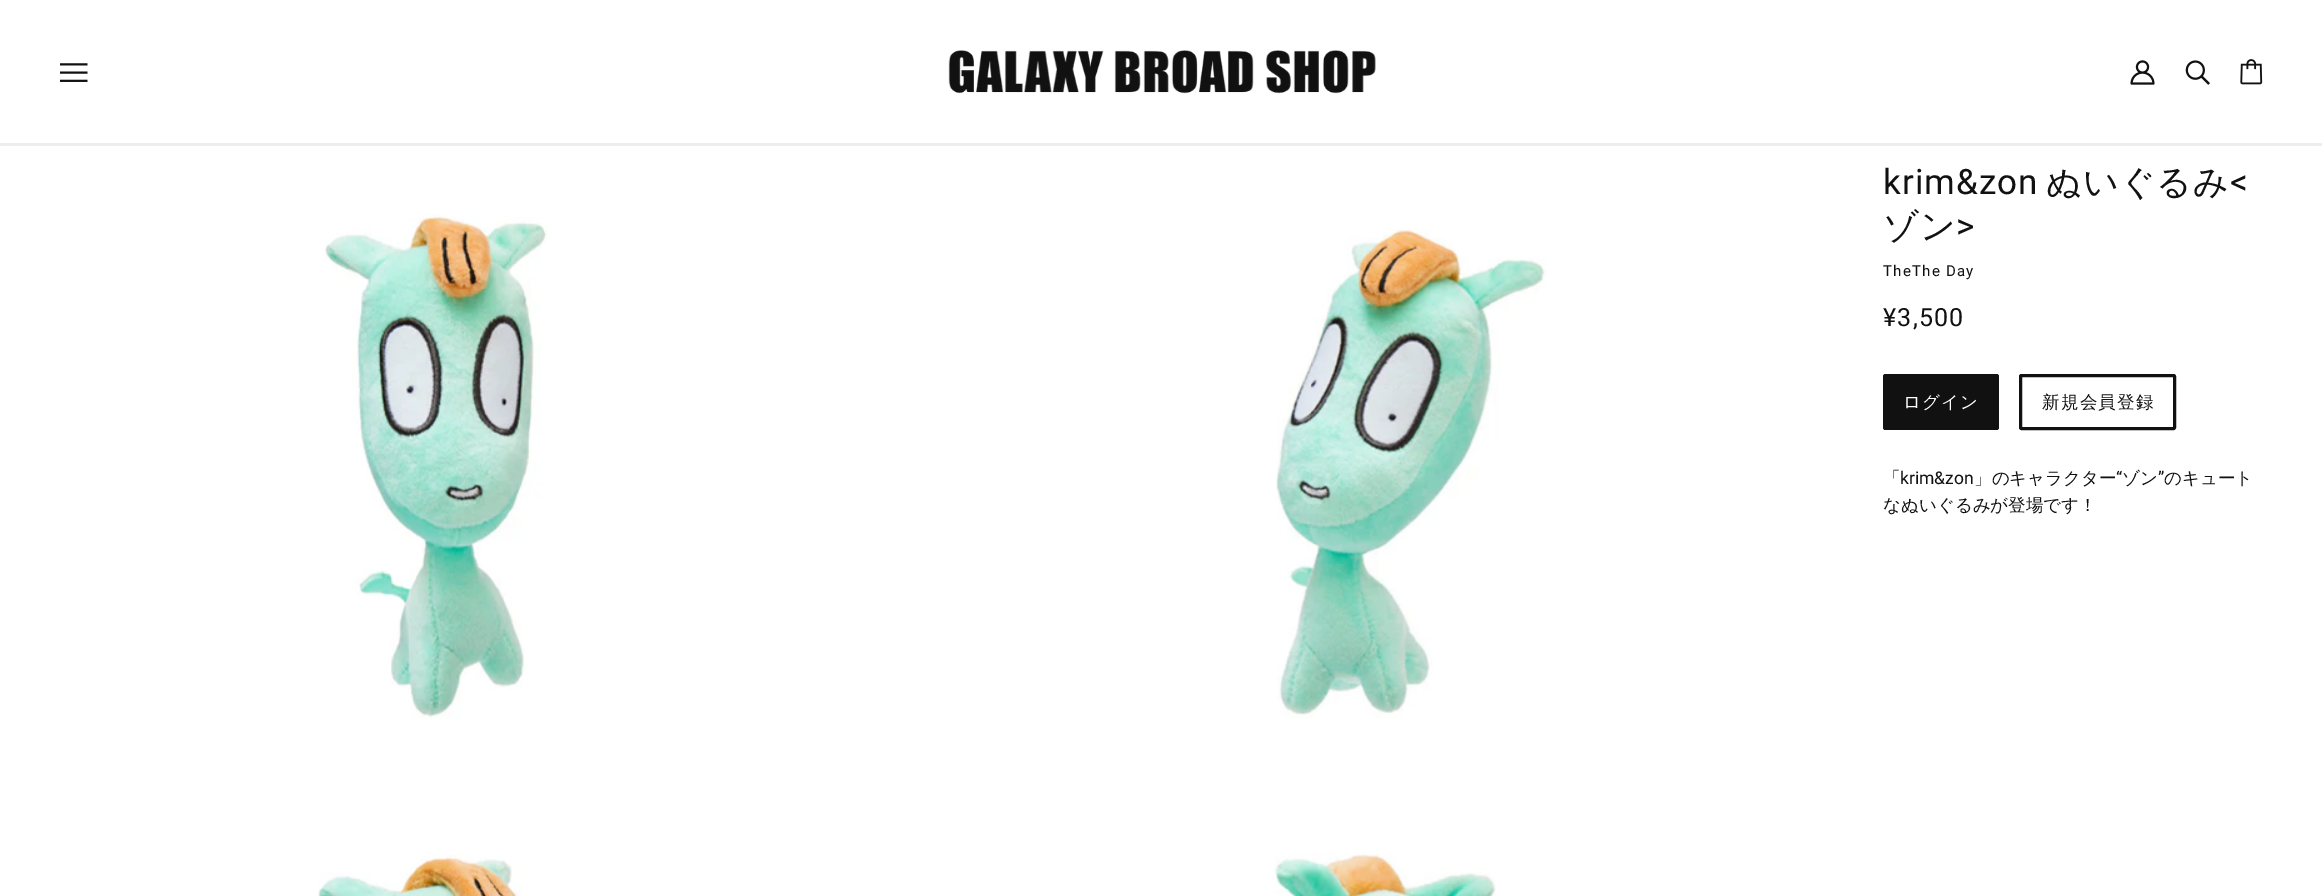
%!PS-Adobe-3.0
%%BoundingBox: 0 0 2322 896
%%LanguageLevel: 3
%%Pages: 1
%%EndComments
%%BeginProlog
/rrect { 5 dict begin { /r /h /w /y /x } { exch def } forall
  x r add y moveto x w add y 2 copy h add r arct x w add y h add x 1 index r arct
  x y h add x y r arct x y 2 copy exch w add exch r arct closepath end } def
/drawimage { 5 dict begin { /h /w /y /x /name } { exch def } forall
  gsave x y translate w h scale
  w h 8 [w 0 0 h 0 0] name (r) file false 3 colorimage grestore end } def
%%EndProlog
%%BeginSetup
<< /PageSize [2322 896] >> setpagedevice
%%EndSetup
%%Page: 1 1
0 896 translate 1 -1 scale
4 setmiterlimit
1 setgray
0 0 2322 896 rectfill
0.933 setgray
0 143 2322 3 rectfill
(images/1.raw) 60 63 28 19 drawimage
(images/2.raw) 948 50 428 44 drawimage
(images/3.raw) 2130 60 25 25 drawimage
(images/4.raw) 2185 60 25 25 drawimage
(images/5.raw) 2240 59 23 26 drawimage
(images/6.raw) 324 214 223 505 drawimage
(images/7.raw) 1276 229 271 489 drawimage
(images/8.raw) 318 854 203 42 drawimage
(images/9.raw) 1274 854 222 42 drawimage
0.067 setgray
1883 374 116 56 2.5 rrect fill
3 setlinewidth
2020.5 375.5 154 53 1 rrect stroke
/Roboto-Regular [35 0 0 -35 0 0] selectfont
1883 194 moveto 1 0 (krim&zon) ashow
/WenQuanYiZenHei-Medium [35 0 0 -35 0 0] selectfont
2046 194 moveto 1 0 (ぬいぐるみ) ashow
/Roboto-Regular [35 0 0 -35 0 0] selectfont
2230 194 moveto 1 0 (<) ashow
/WenQuanYiZenHei-Medium [35 0 0 -35 0 0] selectfont
1883 238 moveto 1 0 (ゾン) ashow
/Roboto-Regular [35 0 0 -35 0 0] selectfont
1956 238 moveto 1 0 (>) ashow
/Roboto-Regular [15 0 0 -15 0 0] selectfont
1883 276 moveto 1.25 0 (TheThe Day) ashow
/Roboto-Regular [25 0 0 -25 0 0] selectfont
1883 326 moveto 1.25 0 (¥3,500) ashow
/WenQuanYiZenHei-Medium [17.5 0 0 -17.5 0 0] selectfont
1 setgray
1903 408 moveto 1.25 0 (ログイン) ashow
0.067 setgray
2042 408 moveto 1.25 0 (新規会員登録) ashow
1883 484 moveto (「) show
/Roboto-Regular [17.5 0 0 -17.5 0 0] selectfont
1900 484 moveto (krim&zon) show
/WenQuanYiZenHei-Medium [17.5 0 0 -17.5 0 0] selectfont
1974 484 moveto (」のキャラクター) show
/Roboto-Regular [17.5 0 0 -17.5 0 0] selectfont
2116 484 moveto (“) show
/WenQuanYiZenHei-Medium [17.5 0 0 -17.5 0 0] selectfont
2122 484 moveto (ゾン) show
/Roboto-Regular [17.5 0 0 -17.5 0 0] selectfont
2158 484 moveto (”) show
/WenQuanYiZenHei-Medium [17.5 0 0 -17.5 0 0] selectfont
2164 484 moveto (のキュート) show
1883 511 moveto (なぬいぐるみが登場です！) show
showpage
%%EOF
